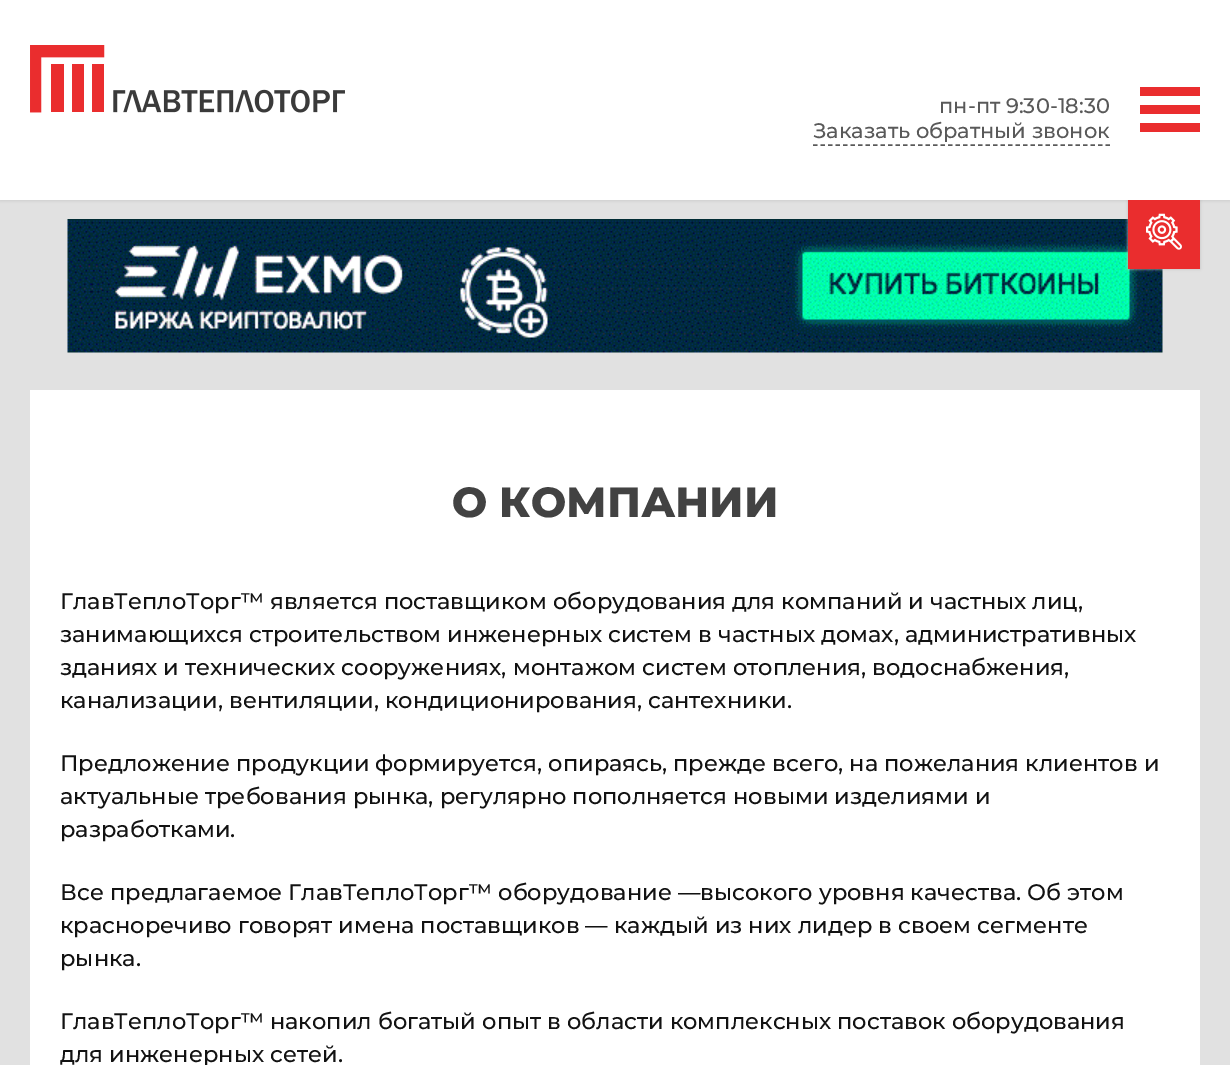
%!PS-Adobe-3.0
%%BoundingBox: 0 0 1230 1065
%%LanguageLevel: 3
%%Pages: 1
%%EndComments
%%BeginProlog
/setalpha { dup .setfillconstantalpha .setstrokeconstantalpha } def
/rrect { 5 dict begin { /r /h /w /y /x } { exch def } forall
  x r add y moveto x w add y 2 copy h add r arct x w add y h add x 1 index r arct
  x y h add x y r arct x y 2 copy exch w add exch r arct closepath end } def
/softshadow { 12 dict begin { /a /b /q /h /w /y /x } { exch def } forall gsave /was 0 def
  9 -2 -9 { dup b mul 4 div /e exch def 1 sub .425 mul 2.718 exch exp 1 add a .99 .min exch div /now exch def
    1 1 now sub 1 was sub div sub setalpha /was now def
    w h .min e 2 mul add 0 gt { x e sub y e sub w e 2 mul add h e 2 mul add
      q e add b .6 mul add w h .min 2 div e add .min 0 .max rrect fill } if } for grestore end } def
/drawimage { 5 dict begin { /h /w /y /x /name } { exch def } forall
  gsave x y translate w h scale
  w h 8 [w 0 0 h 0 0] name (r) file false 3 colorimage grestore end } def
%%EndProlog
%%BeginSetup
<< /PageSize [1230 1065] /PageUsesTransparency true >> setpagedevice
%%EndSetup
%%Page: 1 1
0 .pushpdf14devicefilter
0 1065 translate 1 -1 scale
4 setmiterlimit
0.882 setgray
0 0 1230 1065 rectfill
0.808 setgray
0 -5 1230 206 0 1.5 1 softshadow
(images/3.raw) 67 219 1096 134 drawimage
0.753 setgray
1128 197 72 72 0 1.5 1 softshadow
1 setgray
0 0 1230 200 rectfill
0.918 0.176 0.18 setrgbcolor
1128 200 72 69 rectfill
(images/1.raw) 1146 213 36 37 drawimage
(images/2.raw) 30 45 315 68 drawimage
0.349 setgray
1.5 setlinewidth
[4.5 3] 0 setdash
newpath 813 145 moveto 1110 145 lineto stroke
0.918 0.176 0.18 setrgbcolor
1140 87 60 9 rectfill
1140 105 60 9 rectfill
1140 123 60 9 rectfill
1 setgray
30 390 1170 675 rectfill
/Montserrat-Medium [21 0 0 -21 0 0] selectfont
0.349 setgray
939 113 moveto (пн-пт 9:30-18:30) show
813 138 moveto (Заказать обратный звонок) show
/Montserrat-ExtraBold [42 0 0 -42 0 0] selectfont
0.259 setgray
452 517 moveto (О КОМПАНИИ) show
/Montserrat-Medium [22.5 0 0 -22.5 0 0] selectfont
0.071 setgray
60 609 moveto (ГлавТеплоТорг™ является поставщиком оборудования для компаний и частных лиц,) show
60 642 moveto (занимающихся строительством инженерных систем в частных домах, административных) show
60 675 moveto (зданиях и технических сооружениях, монтажом систем отопления, водоснабжения,) show
60 708 moveto (канализации, вентиляции, кондиционирования, сантехники.) show
60 771 moveto (Предложение продукции формируется, опираясь, прежде всего, на пожелания клиентов и) show
60 804 moveto (актуальные требования рынка, регулярно пополняется новыми изделиями и) show
60 837 moveto (разработками.) show
60 900 moveto (Все предлагаемое ГлавТеплоТорг™ оборудование —высокого уровня качества. Об этом) show
60 933 moveto (красноречиво говорят имена поставщиков — каждый из них лидер в своем сегменте) show
60 966 moveto (рынка.) show
60 1029 moveto (ГлавТеплоТорг™ накопил богатый опыт в области комплексных поставок оборудования) show
60 1062 moveto (для инженерных сетей.) show
.poppdf14devicefilter showpage
%%EOF
